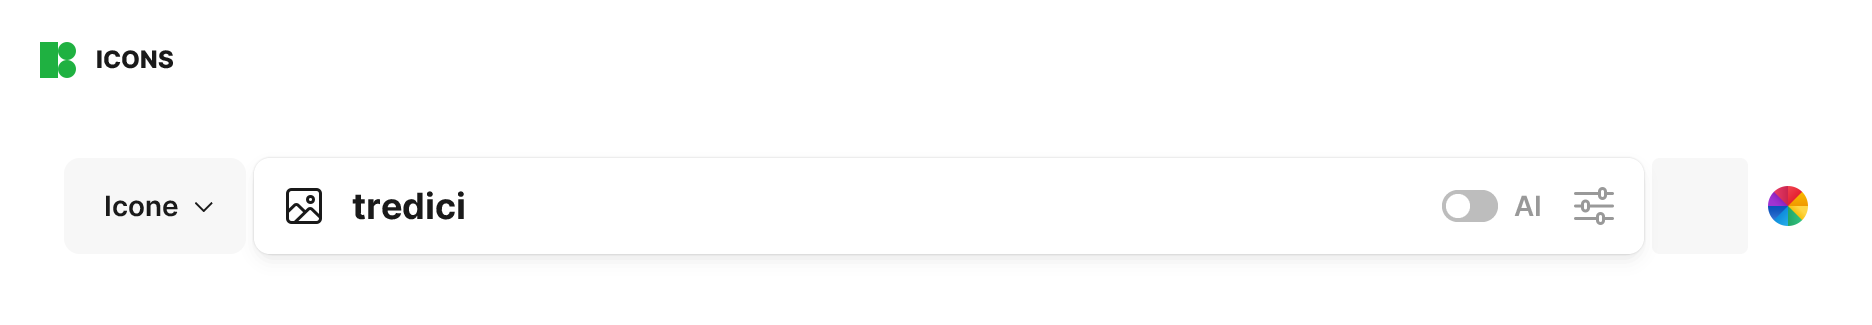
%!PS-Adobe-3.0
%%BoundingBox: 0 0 1872 325
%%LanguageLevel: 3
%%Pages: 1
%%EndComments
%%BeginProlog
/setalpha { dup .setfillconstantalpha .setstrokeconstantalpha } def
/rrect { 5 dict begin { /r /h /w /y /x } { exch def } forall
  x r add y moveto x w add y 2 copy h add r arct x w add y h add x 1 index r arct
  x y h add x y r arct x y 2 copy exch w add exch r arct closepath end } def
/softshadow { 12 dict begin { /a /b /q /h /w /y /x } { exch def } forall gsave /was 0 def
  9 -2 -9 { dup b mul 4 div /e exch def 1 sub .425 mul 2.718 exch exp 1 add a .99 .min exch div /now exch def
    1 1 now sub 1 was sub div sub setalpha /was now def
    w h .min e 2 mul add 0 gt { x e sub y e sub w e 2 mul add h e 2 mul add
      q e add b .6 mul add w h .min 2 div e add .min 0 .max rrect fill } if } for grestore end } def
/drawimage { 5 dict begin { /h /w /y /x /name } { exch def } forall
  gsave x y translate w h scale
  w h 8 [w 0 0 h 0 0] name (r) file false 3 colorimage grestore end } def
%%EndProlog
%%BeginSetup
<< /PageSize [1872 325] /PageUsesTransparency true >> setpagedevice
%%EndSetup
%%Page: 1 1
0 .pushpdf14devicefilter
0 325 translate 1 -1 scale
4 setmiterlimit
1 setgray
0 0 1872 325 rectfill
(images/1.raw) 40 42 36 36 drawimage
0.969 setgray
1652 158 96 96 8 rrect fill
0.376 setgray
258 170 1382 88 12 8 0.15 softshadow
0.969 setgray
64 158 182 96 16 rrect fill
0.102 setgray
newpath 196 202 moveto 204.5 210.5 lineto 203.5 212 lineto 195 203.5 lineto closepath fill
newpath 203 210.5 moveto 211.5 202 lineto 212.5 203.5 lineto 204 212 lineto closepath fill
0.376 setgray
254 158 1390 96 16 1 0.31 softshadow
1 setgray
254 158 1390 96 16 rrect fill
(images/2.raw) 286 188 36 36 drawimage
0.741 setgray
1442 190 56 32 16 rrect fill
1 setgray
newpath 1458 206 12 0 360 arc closepath fill
(images/3.raw) 1574 187 40 38 drawimage
(images/4.raw) 1768 186 40 40 drawimage
/Inter-ExtraBold [24 0 0 -24 0 0] selectfont
0.102 setgray
96 68 moveto (ICONS) show
/Inter-SemiBold [28 0 0 -28 0 0] selectfont
104 216 moveto (Icone) show
/Inter-Bold [36 0 0 -36 0 0] selectfont
352 219 moveto (tredici) show
/Inter-SemiBold [28 0 0 -28 0 0] selectfont
0.6 setgray
1514 216 moveto (AI) show
.poppdf14devicefilter showpage
%%EOF
